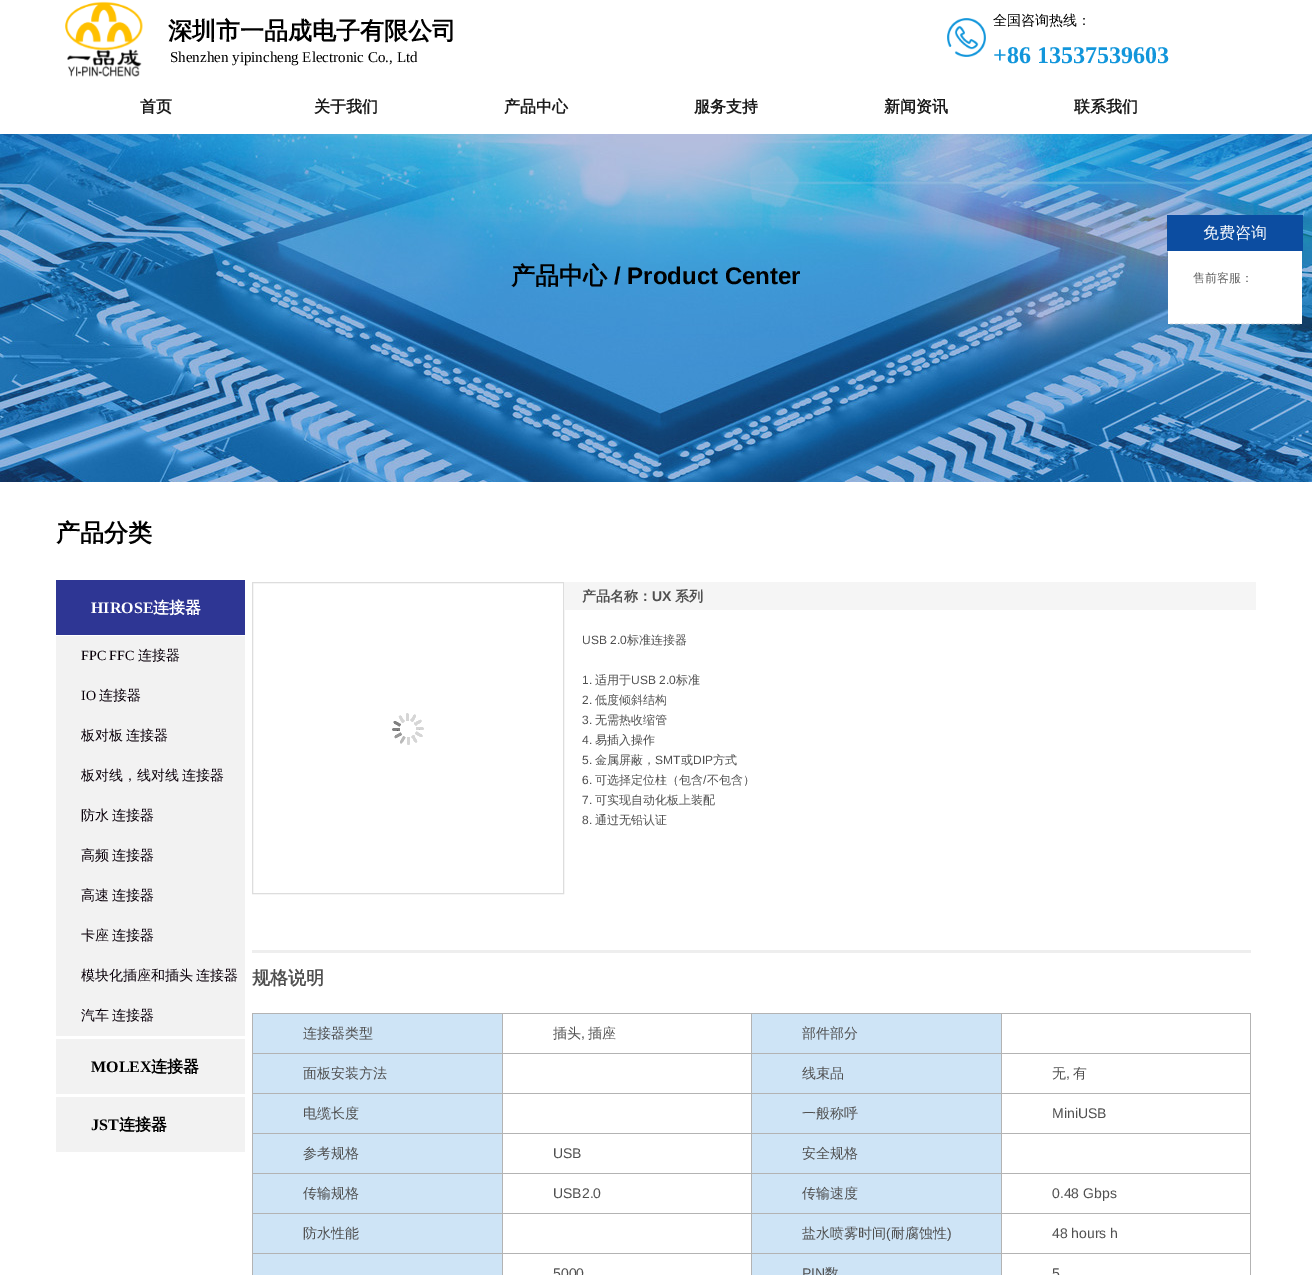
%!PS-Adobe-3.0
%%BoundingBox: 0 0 1312 1275
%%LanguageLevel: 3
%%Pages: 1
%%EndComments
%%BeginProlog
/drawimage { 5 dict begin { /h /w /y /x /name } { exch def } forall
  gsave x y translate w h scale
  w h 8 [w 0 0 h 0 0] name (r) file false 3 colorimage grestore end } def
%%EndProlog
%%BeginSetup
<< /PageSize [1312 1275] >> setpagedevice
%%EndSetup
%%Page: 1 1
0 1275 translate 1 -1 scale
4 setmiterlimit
1 setgray
0 0 1312 1275 rectfill
(images/1.raw) 65 1 78 76 drawimage
(images/2.raw) 947 18 39 39 drawimage
(images/3.raw) 0 134 1312 348 drawimage
0.18 0.212 0.58 setrgbcolor
56 580 189 55 rectfill
0.949 setgray
56 636 189 400 rectfill
56 1039 189 55 rectfill
56 1097 189 55 rectfill
0.867 setgray
252.5 582.5 311 311 rectstroke
(images/4.raw) 392 713 32 32 drawimage
0.961 setgray
564 582 692 28 rectfill
0.933 setgray
252 950 999 3 rectfill
0.702 setgray
252 1013 999 1 rectfill
252 1013 1 262 rectfill
0.808 0.894 0.965 setrgbcolor
253 1014 249 39 rectfill
0.702 setgray
502 1014 1 261 rectfill
253 1053 250 1 rectfill
751 1014 1 261 rectfill
503 1053 249 1 rectfill
0.808 0.894 0.965 setrgbcolor
752 1014 249 39 rectfill
0.702 setgray
1001 1014 1 261 rectfill
752 1053 250 1 rectfill
1250 1014 1 261 rectfill
1002 1053 249 1 rectfill
0.808 0.894 0.965 setrgbcolor
253 1054 249 39 rectfill
0.702 setgray
253 1093 998 1 rectfill
0.808 0.894 0.965 setrgbcolor
752 1054 249 39 rectfill
253 1094 249 39 rectfill
0.702 setgray
253 1133 998 1 rectfill
0.808 0.894 0.965 setrgbcolor
752 1094 249 39 rectfill
253 1134 249 39 rectfill
0.702 setgray
253 1173 998 1 rectfill
0.808 0.894 0.965 setrgbcolor
752 1134 249 39 rectfill
253 1174 249 39 rectfill
0.702 setgray
253 1213 998 1 rectfill
0.808 0.894 0.965 setrgbcolor
752 1174 249 39 rectfill
253 1214 249 39 rectfill
0.702 setgray
253 1253 998 1 rectfill
0.808 0.894 0.965 setrgbcolor
752 1214 249 39 rectfill
253 1254 249 21 rectfill
752 1254 249 21 rectfill
1 setgray
1168 251 134 73 rectfill
0.047 0.302 0.631 setrgbcolor
1167 215 136 36 rectfill
0.918 setgray
[3 2.08] 0 setdash
newpath 1170 323.5 moveto 1300 323.5 lineto stroke
/WenQuanYiZenHei-Bold [24 0 0 -24 0 0] selectfont
0 setgray
168 39 moveto (深圳市一品成电子有限公司) show
/WenQuanYiZenHei-Medium [14 0 0 -14 0 0] selectfont
993 25 moveto (全国咨询热线：) show
/LiberationSerif-Bold [24 0 0 -24 0 0] selectfont
0.071 0.588 0.859 setrgbcolor
993 63 moveto (+86 13537539603) show
/LiberationSerif-Regular [15 0 0 -15 0 0] selectfont
0 setgray
170 62 moveto (Shenzhen yipincheng Electronic Co., Ltd) show
/WenQuanYiZenHei-Bold [16 0 0 -16 0 0] selectfont
0.102 setgray
140 112 moveto (首页) show
314 112 moveto (关于我们) show
504 112 moveto (产品中心) show
694 112 moveto (服务支持) show
884 112 moveto (新闻资讯) show
1074 112 moveto (联系我们) show
/WenQuanYiZenHei-Bold [24 0 0 -24 0 0] selectfont
0 setgray
511 284 moveto (产品中心) show
/LiberationSans-Bold [24 0 0 -24 0 0] selectfont
614 284 moveto (/ Product Center) show
/WenQuanYiZenHei-Bold [24 0 0 -24 0 0] selectfont
56 541 moveto (产品分类) show
/LiberationSerif-Bold [16 0 0 -16 0 0] selectfont
1 setgray
91 613 moveto (HIROSE) show
/WenQuanYiZenHei-Bold [16 0 0 -16 0 0] selectfont
153 613 moveto (连接器) show
/LiberationSerif-Regular [14 0 0 -14 0 0] selectfont
0.039 0 0.039 setrgbcolor
81 660 moveto (FPC FFC) show
/WenQuanYiZenHei-Medium [14 0 0 -14 0 0] selectfont
138 660 moveto (连接器) show
/LiberationSerif-Regular [14 0 0 -14 0 0] selectfont
81 700 moveto (IO) show
/WenQuanYiZenHei-Medium [14 0 0 -14 0 0] selectfont
99 700 moveto (连接器) show
81 740 moveto -1 0 32 (板对板 连接器) widthshow
81 780 moveto -1 0 32 (板对线，线对线 连接器) widthshow
81 820 moveto -1 0 32 (防水 连接器) widthshow
81 860 moveto -1 0 32 (高频 连接器) widthshow
81 900 moveto -1 0 32 (高速 连接器) widthshow
81 940 moveto -1 0 32 (卡座 连接器) widthshow
81 980 moveto -1 0 32 (模块化插座和插头 连接器) widthshow
81 1020 moveto -1 0 32 (汽车 连接器) widthshow
/LiberationSerif-Bold [16 0 0 -16 0 0] selectfont
0 setgray
91 1072 moveto (MOLEX) show
/WenQuanYiZenHei-Bold [16 0 0 -16 0 0] selectfont
151 1072 moveto (连接器) show
/LiberationSerif-Bold [16 0 0 -16 0 0] selectfont
91 1130 moveto (JST) show
/WenQuanYiZenHei-Bold [16 0 0 -16 0 0] selectfont
119 1130 moveto (连接器) show
/WenQuanYiZenHei-Bold [14 0 0 -14 0 0] selectfont
0.314 setgray
582 601 moveto (产品名称：) show
/LiberationSans-Bold [14 0 0 -14 0 0] selectfont
652 601 moveto (UX) show
/WenQuanYiZenHei-Bold [14 0 0 -14 0 0] selectfont
675 601 moveto (系列) show
/LiberationSans-Regular [12 0 0 -12 0 0] selectfont
582 644 moveto (USB 2.0) show
/WenQuanYiZenHei-Medium [12 0 0 -12 0 0] selectfont
627 644 moveto (标准连接器) show
/LiberationSans-Regular [12 0 0 -12 0 0] selectfont
582 684 moveto (1.) show
/WenQuanYiZenHei-Medium [12 0 0 -12 0 0] selectfont
595 684 moveto (适用于) show
/LiberationSans-Regular [12 0 0 -12 0 0] selectfont
631 684 moveto (USB 2.0) show
/WenQuanYiZenHei-Medium [12 0 0 -12 0 0] selectfont
676 684 moveto (标准) show
/LiberationSans-Regular [12 0 0 -12 0 0] selectfont
582 704 moveto (2.) show
/WenQuanYiZenHei-Medium [12 0 0 -12 0 0] selectfont
595 704 moveto (低度倾斜结构) show
/LiberationSans-Regular [12 0 0 -12 0 0] selectfont
582 724 moveto (3.) show
/WenQuanYiZenHei-Medium [12 0 0 -12 0 0] selectfont
595 724 moveto (无需热收缩管) show
/LiberationSans-Regular [12 0 0 -12 0 0] selectfont
582 744 moveto (4.) show
/WenQuanYiZenHei-Medium [12 0 0 -12 0 0] selectfont
595 744 moveto (易插入操作) show
/LiberationSans-Regular [12 0 0 -12 0 0] selectfont
582 764 moveto (5.) show
/WenQuanYiZenHei-Medium [12 0 0 -12 0 0] selectfont
595 764 moveto (金属屏蔽，) show
/LiberationSans-Regular [12 0 0 -12 0 0] selectfont
655 764 moveto (SMT) show
/WenQuanYiZenHei-Medium [12 0 0 -12 0 0] selectfont
681 764 moveto (或) show
/LiberationSans-Regular [12 0 0 -12 0 0] selectfont
693 764 moveto (DIP) show
/WenQuanYiZenHei-Medium [12 0 0 -12 0 0] selectfont
713 764 moveto (方式) show
/LiberationSans-Regular [12 0 0 -12 0 0] selectfont
582 784 moveto (6.) show
/WenQuanYiZenHei-Medium [12 0 0 -12 0 0] selectfont
595 784 moveto (可选择定位柱（包含) show
/LiberationSans-Regular [12 0 0 -12 0 0] selectfont
703 784 moveto (/) show
/WenQuanYiZenHei-Medium [12 0 0 -12 0 0] selectfont
707 784 moveto (不包含）) show
/LiberationSans-Regular [12 0 0 -12 0 0] selectfont
582 804 moveto (7.) show
/WenQuanYiZenHei-Medium [12 0 0 -12 0 0] selectfont
595 804 moveto (可实现自动化板上装配) show
/LiberationSans-Regular [12 0 0 -12 0 0] selectfont
582 824 moveto (8.) show
/WenQuanYiZenHei-Medium [12 0 0 -12 0 0] selectfont
595 824 moveto (通过无铅认证) show
/WenQuanYiZenHei-Bold [18 0 0 -18 0 0] selectfont
252 984 moveto (规格说明) show
/WenQuanYiZenHei-Medium [14 0 0 -14 0 0] selectfont
303 1038 moveto (连接器类型) show
553 1038 moveto (插头) show
/LiberationSans-Regular [14 0 0 -14 0 0] selectfont
581 1038 moveto (,) show
/WenQuanYiZenHei-Medium [14 0 0 -14 0 0] selectfont
588 1038 moveto (插座) show
802 1038 moveto (部件部分) show
303 1078 moveto (面板安装方法) show
802 1078 moveto (线束品) show
1052 1078 moveto (无) show
/LiberationSans-Regular [14 0 0 -14 0 0] selectfont
1066 1078 moveto (,) show
/WenQuanYiZenHei-Medium [14 0 0 -14 0 0] selectfont
1073 1078 moveto (有) show
303 1118 moveto (电缆长度) show
802 1118 moveto (一般称呼) show
/LiberationSans-Regular [14 0 0 -14 0 0] selectfont
1052 1118 moveto (MiniUSB) show
/WenQuanYiZenHei-Medium [14 0 0 -14 0 0] selectfont
303 1158 moveto (参考规格) show
/LiberationSans-Regular [14 0 0 -14 0 0] selectfont
553 1158 moveto (USB) show
/WenQuanYiZenHei-Medium [14 0 0 -14 0 0] selectfont
802 1158 moveto (安全规格) show
303 1198 moveto (传输规格) show
/LiberationSans-Regular [14 0 0 -14 0 0] selectfont
553 1198 moveto (USB2.0) show
/WenQuanYiZenHei-Medium [14 0 0 -14 0 0] selectfont
802 1198 moveto (传输速度) show
/LiberationSans-Regular [14 0 0 -14 0 0] selectfont
1052 1198 moveto (0.48 Gbps) show
/WenQuanYiZenHei-Medium [14 0 0 -14 0 0] selectfont
303 1238 moveto (防水性能) show
802 1238 moveto (盐水喷雾时间) show
/LiberationSans-Regular [14 0 0 -14 0 0] selectfont
886 1238 moveto (\() show
/WenQuanYiZenHei-Medium [14 0 0 -14 0 0] selectfont
891 1238 moveto (耐腐蚀性) show
/LiberationSans-Regular [14 0 0 -14 0 0] selectfont
947 1238 moveto (\)) show
1052 1238 moveto (48 hours h) show
553 1278 moveto (5000) show
802 1278 moveto (PIN) show
/WenQuanYiZenHei-Medium [14 0 0 -14 0 0] selectfont
825 1278 moveto (数) show
/LiberationSans-Regular [14 0 0 -14 0 0] selectfont
1052 1278 moveto (5) show
/WenQuanYiZenHei-Medium [16 0 0 -16 0 0] selectfont
1 setgray
1203 238 moveto (免费咨询) show
/WenQuanYiZenHei-Medium [12 0 0 -12 0 0] selectfont
0.4 setgray
1193 282 moveto (售前客服：) show
showpage
%%EOF
